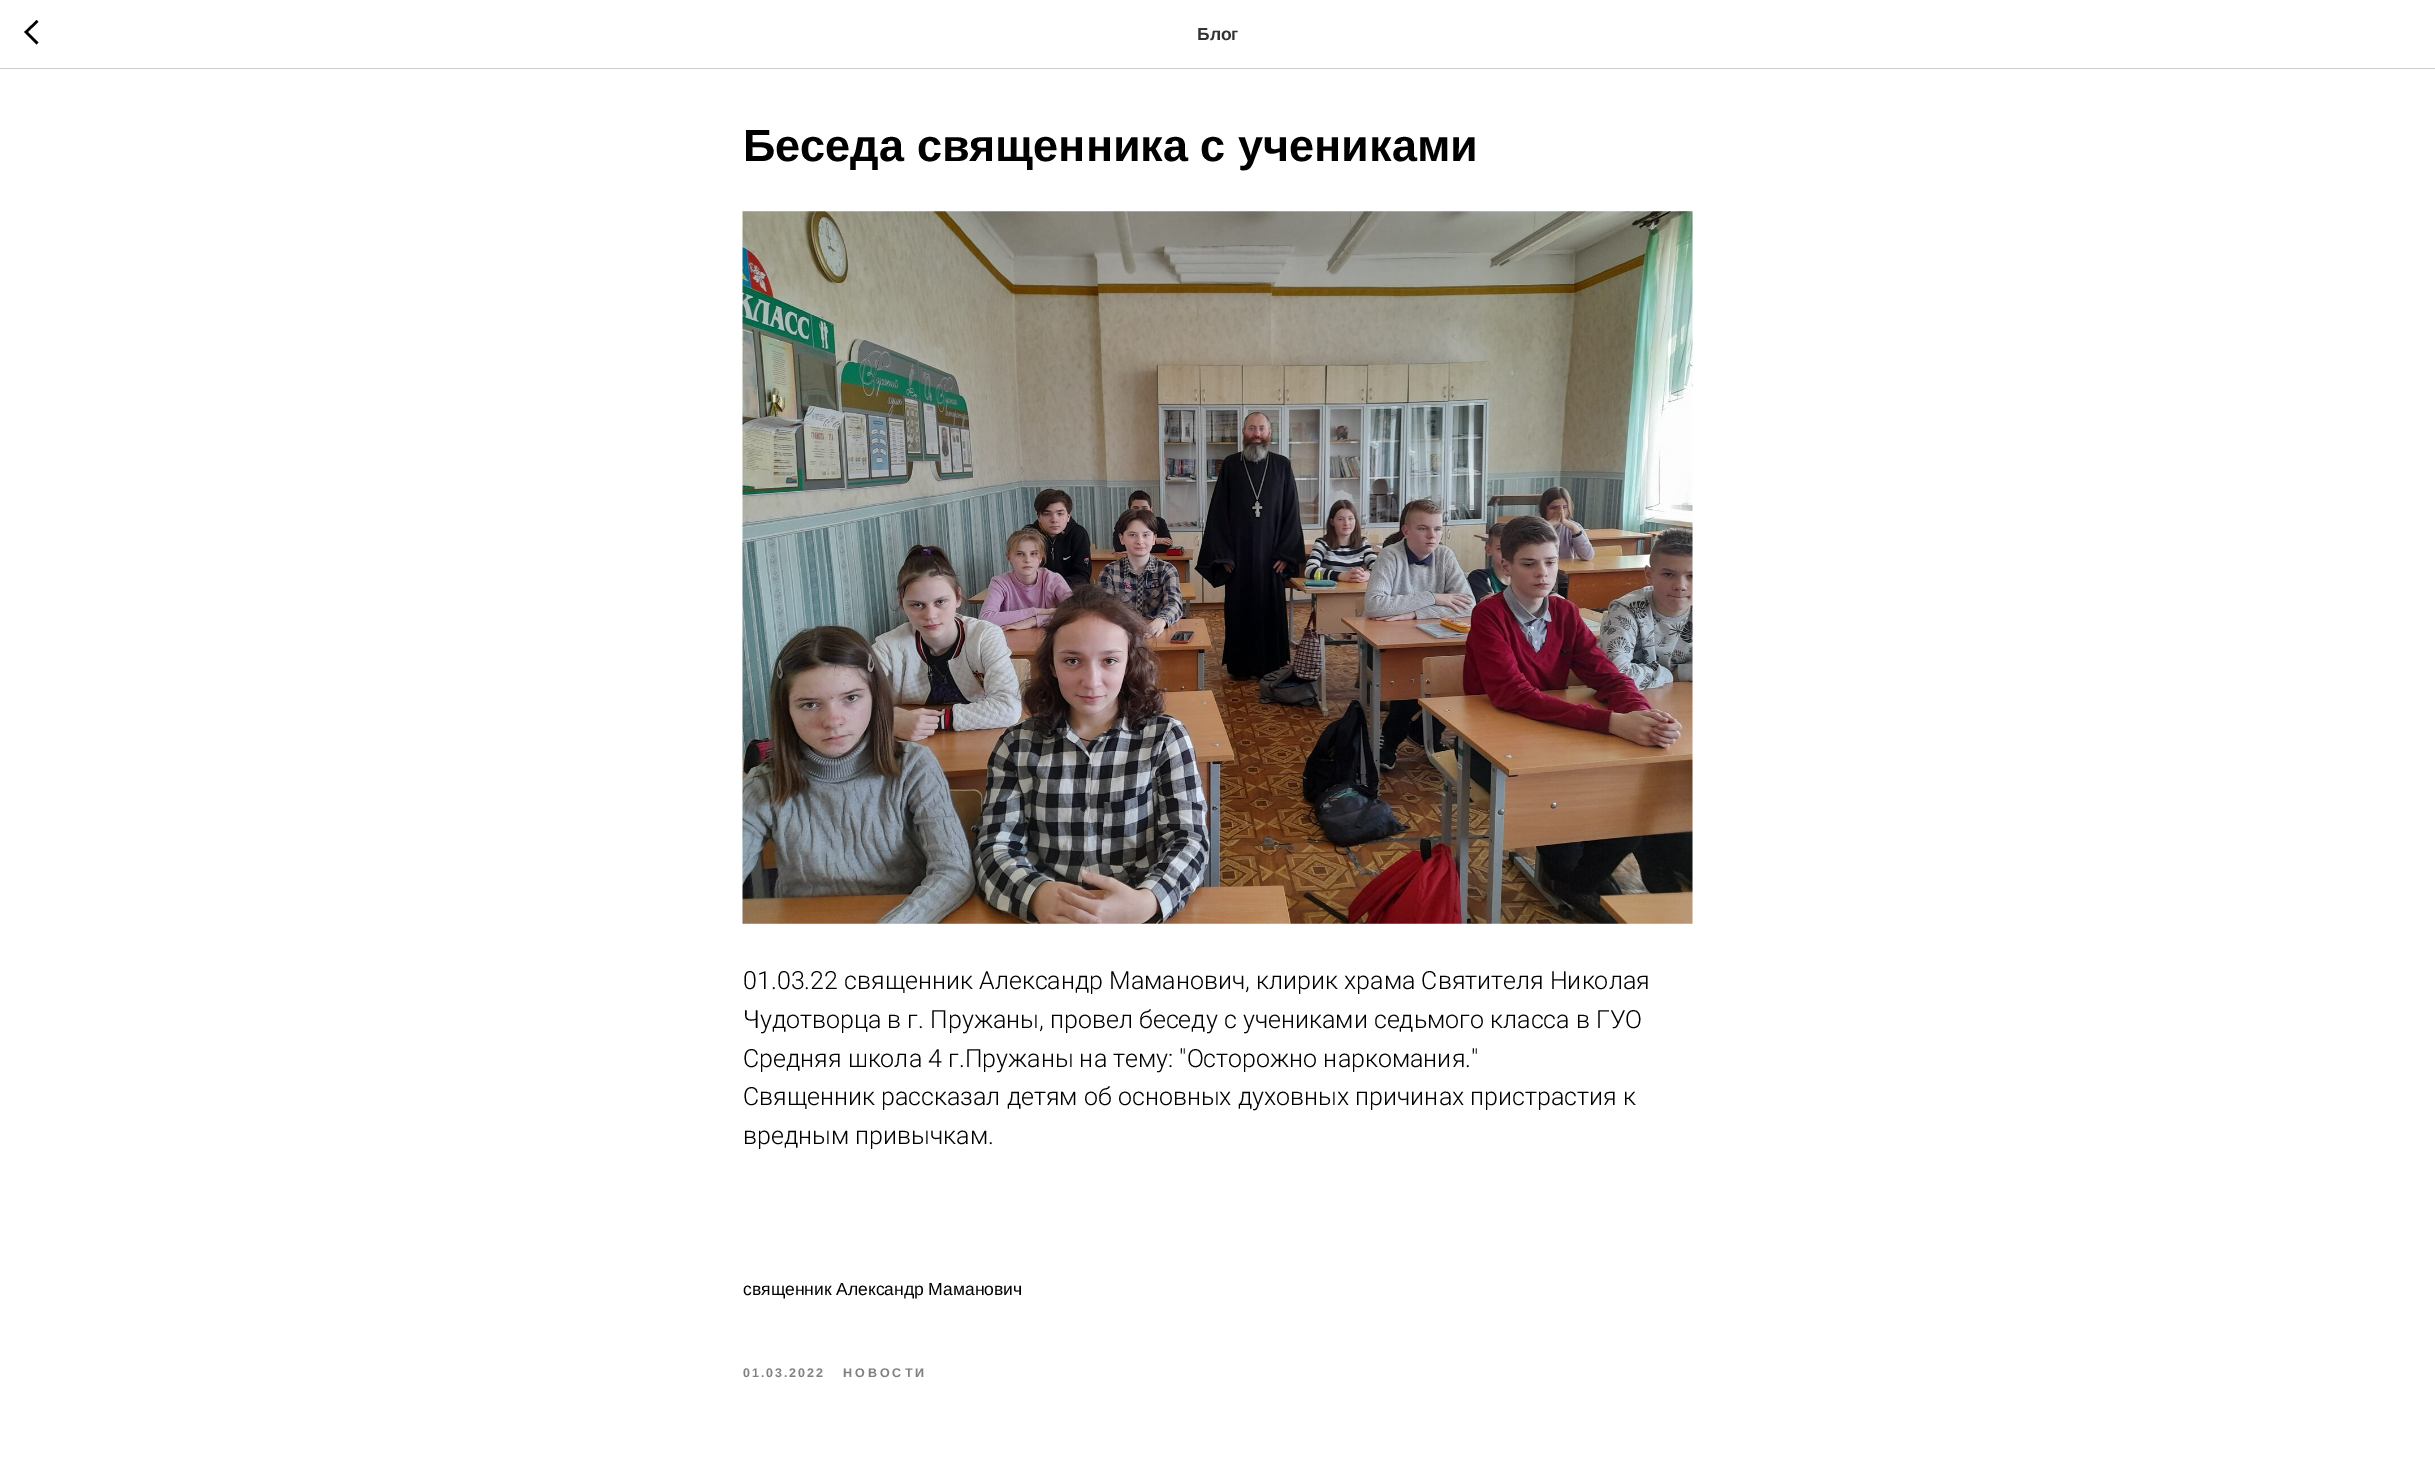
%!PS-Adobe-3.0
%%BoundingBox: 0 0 2435 1461
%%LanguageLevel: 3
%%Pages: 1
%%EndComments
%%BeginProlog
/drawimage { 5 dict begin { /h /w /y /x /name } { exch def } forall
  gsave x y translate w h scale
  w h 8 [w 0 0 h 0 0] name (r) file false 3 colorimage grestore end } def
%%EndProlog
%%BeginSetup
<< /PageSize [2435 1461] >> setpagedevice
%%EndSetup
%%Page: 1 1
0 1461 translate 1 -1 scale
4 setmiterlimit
1 setgray
0 0 2435 1461 rectfill
0.8 setgray
0 68 2435 1 rectfill
0 setgray
2.5 setlinewidth
newpath 37.5 43.5 moveto 26 32 lineto 37.5 21 lineto stroke
(images/1.raw) 742 211 951 713 drawimage
/LiberationSans-Bold [17.5 0 0 -17.5 0 0] selectfont
0.2 setgray
1197 40 moveto (Блог) show
/LiberationSans-Bold [45 0 0 -45 0 0] selectfont
0 setgray
743 161 moveto (Беседа священника с учениками) show
/Roboto-Light [25 0 0 -25 0 0] selectfont
743 989 moveto (01.03.22 священник Александр Маманович, клирик храма Святителя Николая) show
743 1028 moveto (Чудотворца в г. Пружаны, провел беседу с учениками седьмого класса в ГУО) show
743 1067 moveto (Средняя школа 4 г.Пружаны на тему: "Осторожно наркомания.") show
743 1105 moveto (Священник рассказал детям об основных духовных причинах пристрастия к) show
743 1144 moveto (вредным привычкам.) show
/LiberationSans-Regular [17.5 0 0 -17.5 0 0] selectfont
743 1295 moveto (священник Александр Маманович) show
/LiberationSans-Bold [12.5 0 0 -12.5 0 0] selectfont
0.502 setgray
743 1377 moveto 1.9 0 (01.03.2022) ashow
843 1377 moveto 3 0 (НОВОСТИ) ashow
showpage
%%EOF
